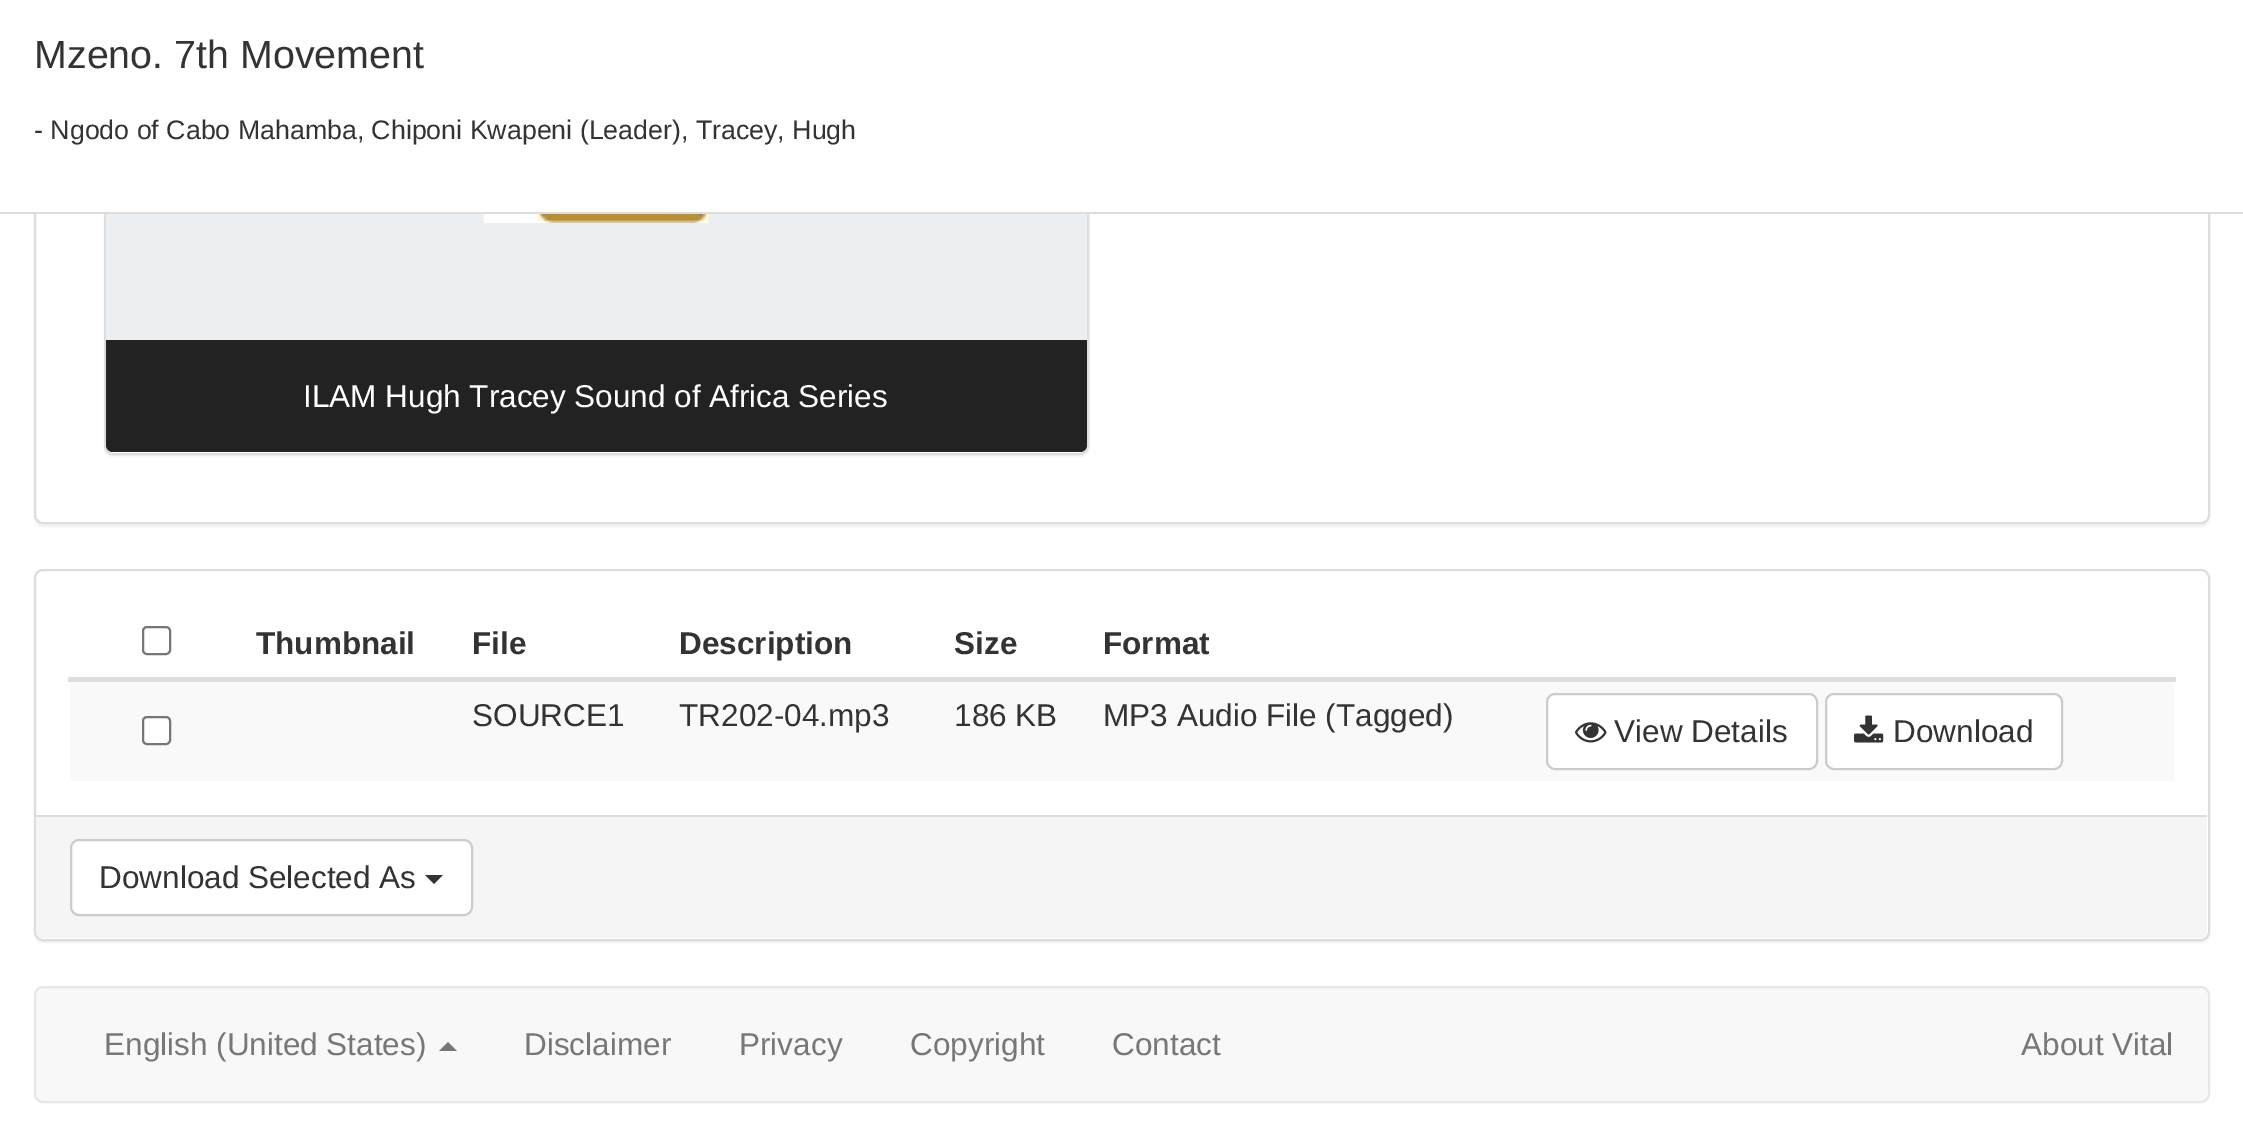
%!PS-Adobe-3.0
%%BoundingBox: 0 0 2243 1146
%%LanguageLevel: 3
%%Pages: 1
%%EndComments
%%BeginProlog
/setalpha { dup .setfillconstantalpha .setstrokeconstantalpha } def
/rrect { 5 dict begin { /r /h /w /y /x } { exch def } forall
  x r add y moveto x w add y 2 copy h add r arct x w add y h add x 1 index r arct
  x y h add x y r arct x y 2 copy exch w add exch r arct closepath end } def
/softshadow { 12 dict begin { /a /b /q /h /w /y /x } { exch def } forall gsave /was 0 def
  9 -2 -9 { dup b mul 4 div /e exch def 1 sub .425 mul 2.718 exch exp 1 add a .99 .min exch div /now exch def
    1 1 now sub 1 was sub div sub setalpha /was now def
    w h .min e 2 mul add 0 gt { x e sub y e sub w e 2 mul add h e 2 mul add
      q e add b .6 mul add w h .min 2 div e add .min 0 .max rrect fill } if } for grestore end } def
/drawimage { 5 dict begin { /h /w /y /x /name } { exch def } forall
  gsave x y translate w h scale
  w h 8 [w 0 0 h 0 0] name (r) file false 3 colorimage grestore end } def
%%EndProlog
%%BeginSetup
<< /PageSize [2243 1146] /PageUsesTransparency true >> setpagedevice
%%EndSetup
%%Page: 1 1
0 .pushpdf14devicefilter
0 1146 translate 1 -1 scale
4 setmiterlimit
1 setgray
0 0 2243 1146 rectfill
0 setgray
34 -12 2176 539 9 1 0.05 softshadow
1 setgray
35 -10 2174 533 8 rrect gsave fill grestore
0.867 setgray
2 setlinewidth
stroke
0 setgray
104 -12 985 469 9 1 0.05 softshadow
1 setgray
105 -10 983 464 8 rrect gsave fill grestore
0.867 setgray
stroke
1 setgray
33 0 2178 212 rectfill
0.867 setgray
0 212 2243 2 rectfill
0.925 0.937 0.945 setrgbcolor
106 214 981 126 rectfill
(images/1.raw) 483 214 226 9 drawimage
0.133 setgray
newpath 106 340 moveto 1087 340 lineto 1087 445 lineto 1087 449 1084 452 1080 452 curveto 113 452 lineto 109 452 106 449 106 445 curveto closepath fill
0 setgray
34 572 2176 371 9 1 0.05 softshadow
1 setgray
35 570 2174 370 8 rrect gsave fill grestore
0.867 setgray
stroke
0.463 setgray
143 627 27 27 4 rrect stroke
0.867 setgray
68 677 2108 5 rectfill
0.976 setgray
70 682 2104 99 rectfill
1 setgray
143 717 27 27 4 rrect gsave fill grestore
0.463 setgray
stroke
1 setgray
1547 694 270 75 8 rrect gsave fill grestore
0.8 setgray
stroke
(images/2.raw) 1575 722 32 21 drawimage
1 setgray
1826 694 236 75 8 rrect gsave fill grestore
0.8 setgray
stroke
(images/3.raw) 1854 715 30 28 drawimage
0.961 setgray
newpath 36 815 moveto 2207 815 lineto 2207 931 lineto 2207 935 2204 938 2200 938 curveto 43 938 lineto 39 938 36 935 36 931 curveto closepath fill
0.867 setgray
36 815 2171 2 rectfill
1 setgray
71 840 401 75 8 rrect gsave fill grestore
0.8 setgray
stroke
0.2 setgray
newpath 425 875 moveto 443 875 lineto 434 884 lineto closepath fill
0.973 setgray
35 987 2174 115 8 rrect gsave fill grestore
0.906 setgray
stroke
0.467 setgray
newpath 457 1051 moveto 439 1051 lineto 448 1042 lineto closepath fill
/LiberationSans-Regular [39.4 0 0 -39.4 0 0] selectfont
0.2 setgray
34 68 moveto (Mzeno. 7th Movement) show
/LiberationSans-Regular [26.75 0 0 -26.75 0 0] selectfont
34 139 moveto (- Ngodo of Cabo Mahamba, Chiponi Kwapeni \(Leader\), Tracey, Hugh) show
/LiberationSans-Regular [31.5 0 0 -31.5 0 0] selectfont
1 setgray
303 407 moveto (ILAM Hugh Tracey Sound of Africa Series) show
/LiberationSans-Bold [31.5 0 0 -31.5 0 0] selectfont
0.2 setgray
256 654 moveto (Thumbnail) show
472 654 moveto (File) show
679 654 moveto (Description) show
954 654 moveto (Size) show
1103 654 moveto (Format) show
/LiberationSans-Regular [31.5 0 0 -31.5 0 0] selectfont
472 726 moveto (SOURCE1) show
679 726 moveto (TR202-04.mp3) show
954 726 moveto (186 KB) show
1103 726 moveto (MP3 Audio File \(Tagged\)) show
1614 742 moveto (View Details) show
1893 742 moveto (Download) show
99 888 moveto (Download Selected As) show
0.467 setgray
104 1055 moveto (English \(United States\)) show
524 1055 moveto (Disclaimer) show
739 1055 moveto (Privacy) show
910 1055 moveto (Copyright) show
1112 1055 moveto (Contact) show
2021 1055 moveto (About Vital) show
.poppdf14devicefilter showpage
%%EOF
